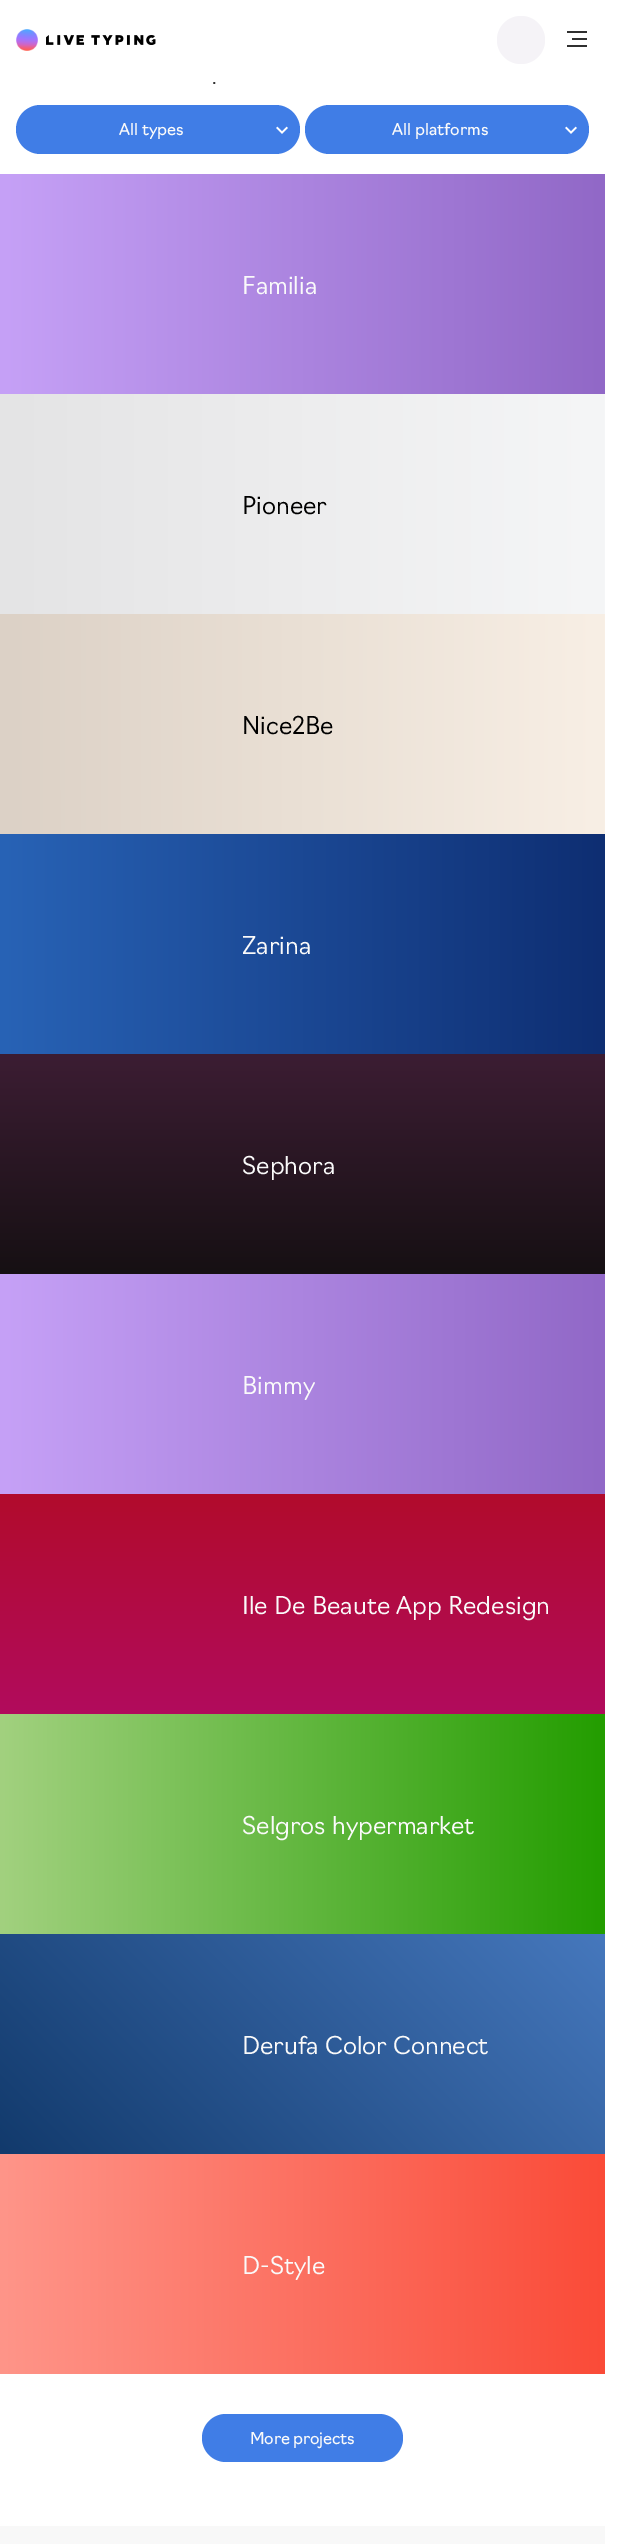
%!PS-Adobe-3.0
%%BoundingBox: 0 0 620 2544
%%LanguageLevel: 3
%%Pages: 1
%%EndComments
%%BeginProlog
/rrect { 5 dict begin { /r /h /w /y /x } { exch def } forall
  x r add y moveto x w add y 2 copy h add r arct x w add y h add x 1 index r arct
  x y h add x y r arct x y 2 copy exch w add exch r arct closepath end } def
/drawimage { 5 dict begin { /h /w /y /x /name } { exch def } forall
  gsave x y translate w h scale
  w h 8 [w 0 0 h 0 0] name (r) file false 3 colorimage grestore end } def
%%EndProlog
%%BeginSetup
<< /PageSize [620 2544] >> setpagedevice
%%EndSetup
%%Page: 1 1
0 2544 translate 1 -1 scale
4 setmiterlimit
1 setgray
0 0 620 2544 rectfill
(images/1.raw) 16 29 22 22 drawimage
(images/2.raw) 46 35 110 10 drawimage
0.961 0.953 0.969 setrgbcolor
newpath 521 40 24 0 360 arc closepath fill
0.188 setgray
572 38 15 2 rectfill
567 31 20 2 rectfill
567 45 20 2 rectfill
0.251 0.49 0.902 setrgbcolor
16 105 284 49 24.5 rrect fill
(images/3.raw) 276 126 12 8 drawimage
305 105 284 49 24.5 rrect fill
(images/3.raw) 565 126 12 8 drawimage
gsave newpath 0 174 moveto 605 174 lineto 605 394 lineto 0 394 lineto closepath clip newpath
<< /ShadingType 2 /ColorSpace /DeviceRGB /Coords [0 284 605 284] /Extend [true true] /Function << /FunctionType 2 /Domain [0 1] /C0 [0.776 0.631 0.969] /C1 [0.569 0.408 0.78] /N 1 >> >> shfill grestore
gsave newpath 0 394 moveto 605 394 lineto 605 614 lineto 0 614 lineto closepath clip newpath
<< /ShadingType 2 /ColorSpace /DeviceRGB /Coords [0 504 605 504] /Extend [true true] /Function << /FunctionType 2 /Domain [0 1] /C0 [0.894 0.894 0.898] /C1 [0.961 0.965 0.969] /N 1 >> >> shfill grestore
gsave newpath 0 614 moveto 605 614 lineto 605 834 lineto 0 834 lineto closepath clip newpath
<< /ShadingType 2 /ColorSpace /DeviceRGB /Coords [0 724 605 724] /Extend [true true] /Function << /FunctionType 2 /Domain [0 1] /C0 [0.863 0.82 0.776] /C1 [0.973 0.937 0.898] /N 1 >> >> shfill grestore
gsave newpath 0 834 moveto 605 834 lineto 605 1054 lineto 0 1054 lineto closepath clip newpath
<< /ShadingType 2 /ColorSpace /DeviceRGB /Coords [0 944 605 944] /Extend [true true] /Function << /FunctionType 2 /Domain [0 1] /C0 [0.157 0.388 0.714] /C1 [0.055 0.18 0.447] /N 1 >> >> shfill grestore
gsave newpath 0 1054 moveto 605 1054 lineto 605 1274 lineto 0 1274 lineto closepath clip newpath
<< /ShadingType 2 /ColorSpace /DeviceRGB /Coords [303 1054 303 1274] /Extend [true true] /Function << /FunctionType 2 /Domain [0 1] /C0 [0.235 0.114 0.2] /C1 [0.086 0.063 0.075] /N 1 >> >> shfill grestore
gsave newpath 0 1274 moveto 605 1274 lineto 605 1494 lineto 0 1494 lineto closepath clip newpath
<< /ShadingType 2 /ColorSpace /DeviceRGB /Coords [0 1384 605 1384] /Extend [true true] /Function << /FunctionType 2 /Domain [0 1] /C0 [0.776 0.631 0.969] /C1 [0.569 0.408 0.78] /N 1 >> >> shfill grestore
gsave newpath 0 1494 moveto 605 1494 lineto 605 1714 lineto 0 1714 lineto closepath clip newpath
<< /ShadingType 2 /ColorSpace /DeviceRGB /Coords [303 1494 303 1714] /Extend [true true] /Function << /FunctionType 2 /Domain [0 1] /C0 [0.694 0.043 0.173] /C1 [0.694 0.043 0.365] /N 1 >> >> shfill grestore
gsave newpath 0 1714 moveto 605 1714 lineto 605 1934 lineto 0 1934 lineto closepath clip newpath
<< /ShadingType 2 /ColorSpace /DeviceRGB /Coords [0 1824 605 1824] /Extend [true true] /Function << /FunctionType 2 /Domain [0 1] /C0 [0.635 0.82 0.498] /C1 [0.137 0.616 0] /N 1 >> >> shfill grestore
gsave newpath 0 1934 moveto 605 1934 lineto 605 2154 lineto 0 2154 lineto closepath clip newpath
<< /ShadingType 2 /ColorSpace /DeviceRGB /Coords [96 2250 509 1838] /Extend [true true] /Function << /FunctionType 2 /Domain [0 1] /C0 [0.071 0.227 0.424] /C1 [0.275 0.471 0.741] /N 1 >> >> shfill grestore
gsave newpath 0 2154 moveto 605 2154 lineto 605 2374 lineto 0 2374 lineto closepath clip newpath
<< /ShadingType 2 /ColorSpace /DeviceRGB /Coords [605 2264 0 2264] /Extend [true true] /Function << /FunctionType 2 /Domain [0 1] /C0 [0.98 0.294 0.22] /C1 [1 0.584 0.537] /N 1 >> >> shfill grestore
202 2414 201 48 24 rrect fill
0.973 setgray
0 2526 605 18 rectfill
/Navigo-Light [20 0 0 -20 0 0] selectfont
0.188 setgray
212 84 moveto (.) show
/Navigo-Regular [16 0 0 -16 0 0] selectfont
0.98 setgray
119 135 moveto (All types) show
392 135 moveto (All platforms) show
/Navigo-Light [24 0 0 -24 0 0] selectfont
242 294 moveto (Familia) show
0 setgray
242 514 moveto (Pioneer) show
242 734 moveto (Nice2Be) show
0.98 setgray
242 954 moveto (Zarina) show
242 1174 moveto (Sephora) show
242 1394 moveto (Bimmy) show
242 1614 moveto (Ile De Beaute App Redesign) show
242 1834 moveto (Selgros hypermarket) show
242 2054 moveto (Derufa Color Connect) show
242 2274 moveto (D-Style) show
/Navigo-Regular [16 0 0 -16 0 0] selectfont
250 2444 moveto -0.25 0 (More projects) ashow
showpage
%%EOF
